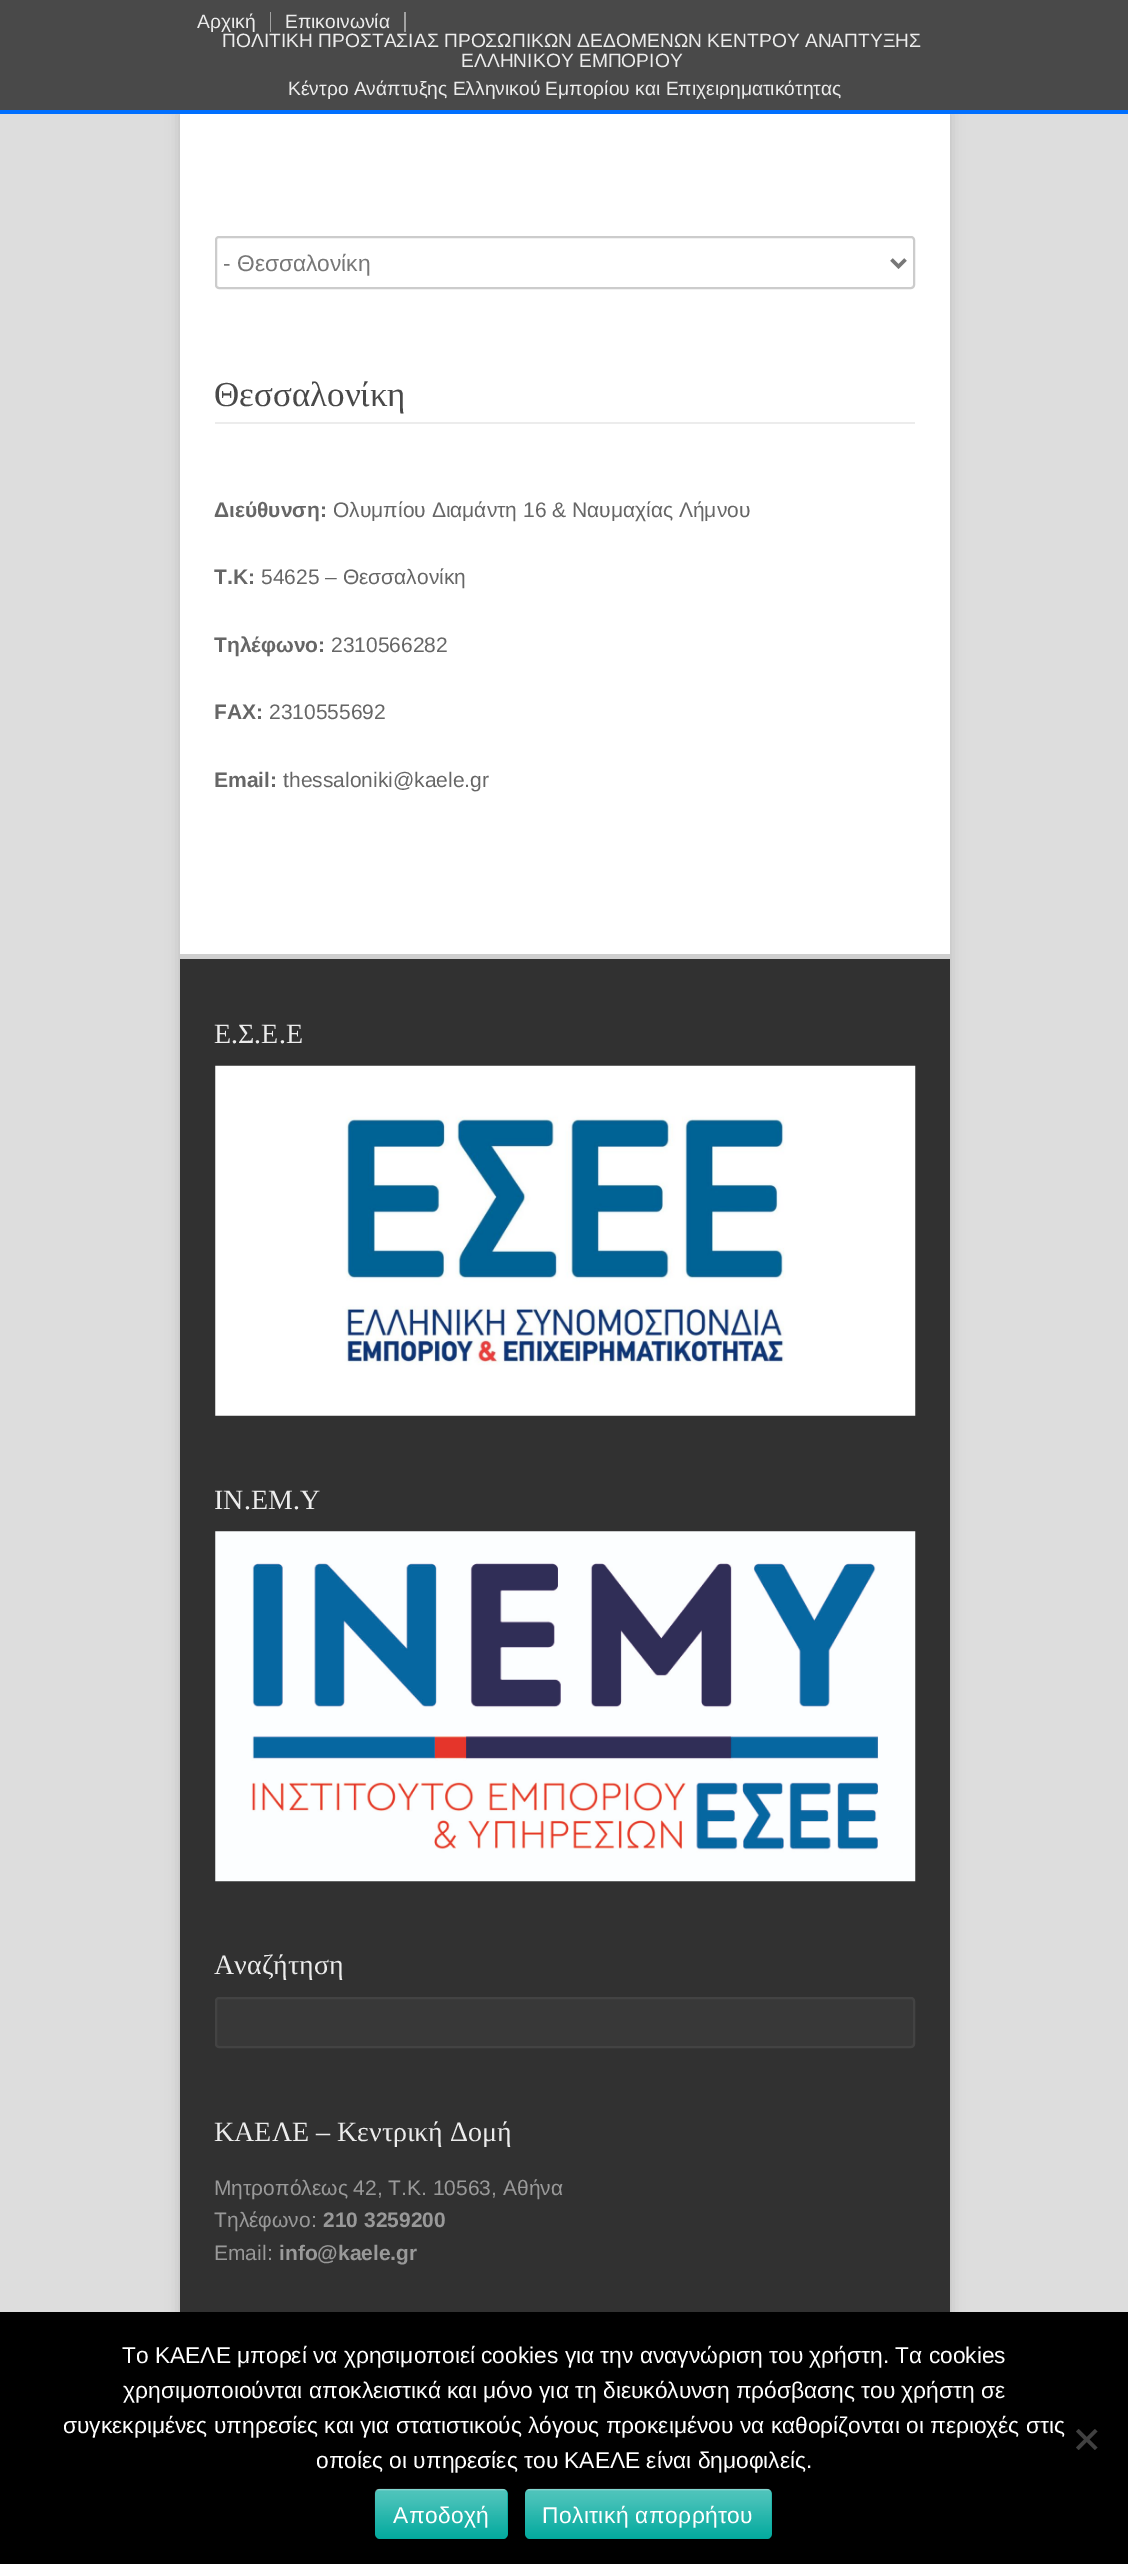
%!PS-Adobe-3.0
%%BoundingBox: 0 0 1128 2564
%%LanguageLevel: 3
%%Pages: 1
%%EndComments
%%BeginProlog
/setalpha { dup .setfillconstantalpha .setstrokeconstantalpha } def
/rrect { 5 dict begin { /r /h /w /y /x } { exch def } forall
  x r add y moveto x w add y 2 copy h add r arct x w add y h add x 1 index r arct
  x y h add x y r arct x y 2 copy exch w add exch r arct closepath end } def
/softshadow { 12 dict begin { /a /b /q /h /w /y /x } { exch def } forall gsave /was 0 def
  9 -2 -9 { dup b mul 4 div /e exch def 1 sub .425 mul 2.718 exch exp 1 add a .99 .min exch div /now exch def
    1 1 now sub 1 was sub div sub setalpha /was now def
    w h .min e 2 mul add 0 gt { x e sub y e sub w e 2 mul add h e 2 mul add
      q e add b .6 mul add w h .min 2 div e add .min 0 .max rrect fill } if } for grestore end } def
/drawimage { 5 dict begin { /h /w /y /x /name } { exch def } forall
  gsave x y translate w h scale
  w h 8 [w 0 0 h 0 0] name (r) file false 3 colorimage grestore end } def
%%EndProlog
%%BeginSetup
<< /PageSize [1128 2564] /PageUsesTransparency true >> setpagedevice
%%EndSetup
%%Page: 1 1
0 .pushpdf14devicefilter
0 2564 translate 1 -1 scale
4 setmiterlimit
0.867 setgray
0 0 1128 2564 rectfill
0.733 setgray
180 114 770 2327 0 7 1 softshadow
0.286 setgray
0 0 1128 110 rectfill
0.635 setgray
270 12 1 20 rectfill
404 12 2 20 rectfill
0 0.435 1 setrgbcolor
0 110 1128 4 rectfill
1 setgray
180 114 770 840 rectfill
0.8 setgray
2 setlinewidth
216 237 698 51 3 rrect stroke
0.467 setgray
3.5 setlinewidth
newpath 891.5 259.5 moveto 898.5 266.5 lineto 905.5 259.5 lineto stroke
0.925 setgray
215 422 700 2 rectfill
0.192 setgray
180 959 770 1353 rectfill
0.812 setgray
180 954 770 5 rectfill
(images/1.raw) 215 1065 701 351 drawimage
(images/2.raw) 215 1531 701 351 drawimage
0.22 setgray
216 1998 698 49 3 rrect gsave fill grestore
0.263 setgray
2 setlinewidth
stroke
0 setgray
0 2312 1128 252 rectfill
0.251 setgray
newpath 1095 2429 moveto 1097.5 2431.5 lineto 1078.5 2450 lineto 1076 2447.5 lineto closepath fill
newpath 1076 2431.5 moveto 1078.5 2429 lineto 1097.5 2447.5 lineto 1095 2450 lineto closepath fill
0 0.663 0.616 setrgbcolor
375 2489 133 50 5 rrect fill
(images/3.raw) 374 2488 134 50 drawimage
525 2489 247 50 5 rrect fill
(images/4.raw) 525 2488 247 50 drawimage
/LiberationSans-Regular [19.25 0 0 -19.25 0 0] selectfont
0.925 setgray
197 28 moveto (Αρχική) show
285 28 moveto (Επικοινωνία) show
222 47 moveto (ΠΟΛΙΤΙΚΗ ΠΡΟΣΤΑΣΙΑΣ ΠΡΟΣΩΠΙΚΩΝ ΔΕΔΟΜΕΝΩΝ ΚΕΝΤΡΟΥ ΑΝΑΠΤΥΞΗΣ) show
461 67 moveto (ΕΛΛΗΝΙΚΟΥ ΕΜΠΟΡΙΟΥ) show
288 95 moveto (Κέντρο Ανάπτυξης Ελληνικού Εμπορίου και Επιχειρηματικότητας) show
/LiberationSans-Regular [22.75 0 0 -22.75 0 0] selectfont
0.467 setgray
223 271 moveto (- Θεσσαλονίκη) show
/LiberationSerif-Regular [35 0 0 -35 0 0] selectfont
0.286 setgray
214 406 moveto (Θεσσαλονίκη) show
/LiberationSans-Bold [21 0 0 -21 0 0] selectfont
0.4 setgray
214 517 moveto (Διεύθυνση:) show
/LiberationSans-Regular [21 0 0 -21 0 0] selectfont
333 517 moveto (Ολυμπίου Διαμάντη 16 & Ναυμαχίας Λήμνου) show
/LiberationSans-Bold [21 0 0 -21 0 0] selectfont
214 584 moveto (Τ.Κ:) show
/LiberationSans-Regular [21 0 0 -21 0 0] selectfont
261 584 moveto (54625 – Θεσσαλονίκη) show
/LiberationSans-Bold [21 0 0 -21 0 0] selectfont
214 652 moveto (Τηλέφωνο:) show
/LiberationSans-Regular [21 0 0 -21 0 0] selectfont
331 652 moveto (2310566282) show
/LiberationSans-Bold [21 0 0 -21 0 0] selectfont
214 719 moveto (FAX:) show
/LiberationSans-Regular [21 0 0 -21 0 0] selectfont
269 719 moveto (2310555692) show
/LiberationSans-Bold [21 0 0 -21 0 0] selectfont
214 787 moveto (Email:) show
/LiberationSans-Regular [21 0 0 -21 0 0] selectfont
283 787 moveto (thessaloniki@kaele.gr) show
/LiberationSerif-Regular [28 0 0 -28 0 0] selectfont
0.925 setgray
214 1043 moveto (Ε.Σ.Ε.Ε) show
214 1509 moveto (ΙΝ.ΕΜ.Υ) show
214 1974 moveto (Αναζήτηση) show
214 2141 moveto (ΚΑΕΛΕ – Κεντρική Δομή) show
/LiberationSans-Regular [21 0 0 -21 0 0] selectfont
0.6 setgray
214 2195 moveto (Μητροπόλεως 42, Τ.Κ. 10563, Αθήνα) show
214 2227 moveto (Τηλέφωνο:) show
/LiberationSans-Bold [21 0 0 -21 0 0] selectfont
323 2227 moveto (210 3259200) show
/LiberationSans-Regular [21 0 0 -21 0 0] selectfont
214 2260 moveto (Email:) show
/LiberationSans-Bold [21 0 0 -21 0 0] selectfont
279 2260 moveto (info@kaele.gr) show
/LiberationSans-Regular [22.75 0 0 -22.75 0 0] selectfont
1 setgray
122 2363 moveto (Το ΚΑΕΛΕ μπορεί να χρησιμοποιεί cookies για την αναγνώριση του χρήστη. Τα cookies) show
123 2398 moveto (χρησιμοποιούνται αποκλειστικά και μόνο για τη διευκόλυνση πρόσβασης του χρήστη σε) show
63 2433 moveto (συγκεκριμένες υπηρεσίες και για στατιστικούς λόγους προκειμένου να καθορίζονται οι περιοχές στις) show
316 2468 moveto (οποίες οι υπηρεσίες του ΚΑΕΛΕ είναι δημοφιλείς.) show
393 2523 moveto 0.4 0 (Αποδοχή) ashow
542 2523 moveto 0.4 0 (Πολιτική απορρήτου) ashow
.poppdf14devicefilter showpage
%%EOF
